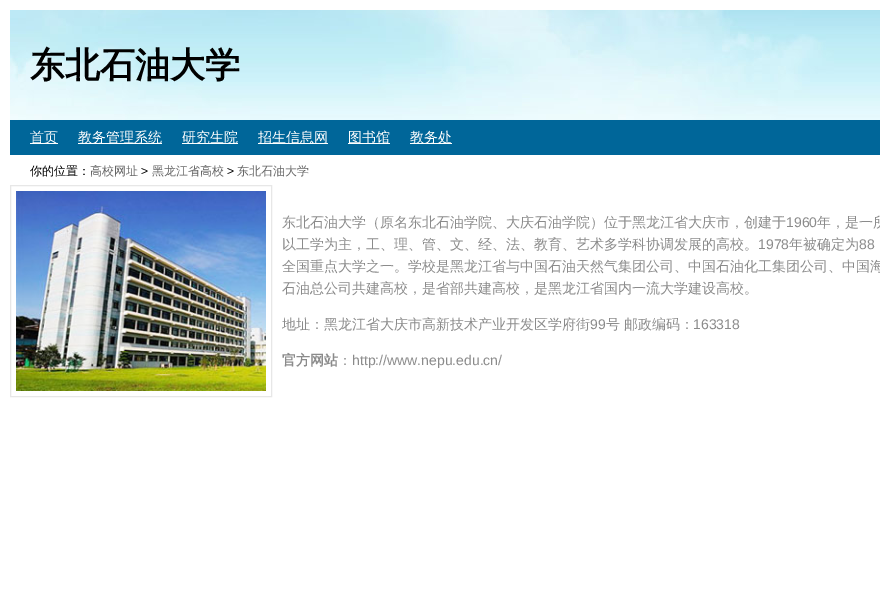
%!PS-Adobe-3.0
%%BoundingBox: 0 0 880 600
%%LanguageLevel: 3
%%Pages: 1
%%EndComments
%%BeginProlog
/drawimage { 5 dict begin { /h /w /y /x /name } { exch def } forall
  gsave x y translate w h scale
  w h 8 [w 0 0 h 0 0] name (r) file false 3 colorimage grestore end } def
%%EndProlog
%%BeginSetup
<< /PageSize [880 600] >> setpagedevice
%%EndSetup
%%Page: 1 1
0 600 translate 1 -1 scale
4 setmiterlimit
1 setgray
0 0 880 600 rectfill
(images/1.raw) 10 10 870 110 drawimage
0 0.4 0.6 setrgbcolor
10 120 870 35 rectfill
1 setgray
30 143 28 1 rectfill
78 143 84 1 rectfill
182 143 56 1 rectfill
258 143 70 1 rectfill
348 143 42 1 rectfill
410 143 42 1 rectfill
0.906 setgray
10.5 185.5 261 211 rectstroke
(images/2.raw) 16 191 250 200 drawimage
/WenQuanYiZenHei-Bold [35 0 0 -35 0 0] selectfont
0 setgray
30 77 moveto (东北石油大学) show
/WenQuanYiZenHei-Medium [14 0 0 -14 0 0] selectfont
1 setgray
30 142 moveto (首页) show
78 142 moveto (教务管理系统) show
182 142 moveto (研究生院) show
258 142 moveto (招生信息网) show
348 142 moveto (图书馆) show
410 142 moveto (教务处) show
/WenQuanYiZenHei-Medium [12 0 0 -12 0 0] selectfont
0 setgray
30 175 moveto (你的位置：) show
0.4 setgray
90 175 moveto (高校网址) show
/LiberationSans-Regular [12 0 0 -12 0 0] selectfont
0 setgray
141 175 moveto (>) show
/WenQuanYiZenHei-Medium [12 0 0 -12 0 0] selectfont
0.4 setgray
152 175 moveto (黑龙江省高校) show
/LiberationSans-Regular [12 0 0 -12 0 0] selectfont
0 setgray
227 175 moveto (>) show
/WenQuanYiZenHei-Medium [12 0 0 -12 0 0] selectfont
0.4 setgray
237 175 moveto (东北石油大学) show
/WenQuanYiZenHei-Medium [14 0 0 -14 0 0] selectfont
0.545 setgray
282 227 moveto (东北石油大学（原名东北石油学院、大庆石油学院）位于黑龙江省大庆市，创建于) show
/LiberationSans-Regular [14 0 0 -14 0 0] selectfont
786 227 moveto (1960) show
/WenQuanYiZenHei-Medium [14 0 0 -14 0 0] selectfont
817 227 moveto (年，是一所) show
282 249 moveto (以工学为主，工、理、管、文、经、法、教育、艺术多学科协调发展的高校。) show
/LiberationSans-Regular [14 0 0 -14 0 0] selectfont
758 249 moveto (1978) show
/WenQuanYiZenHei-Medium [14 0 0 -14 0 0] selectfont
789 249 moveto (年被确定为) show
/LiberationSans-Regular [14 0 0 -14 0 0] selectfont
859 249 moveto (88) show
/WenQuanYiZenHei-Medium [14 0 0 -14 0 0] selectfont
282 271 moveto (全国重点大学之一。学校是黑龙江省与中国石油天然气集团公司、中国石油化工集团公司、中国海) show
282 293 moveto (石油总公司共建高校，是省部共建高校，是黑龙江省国内一流大学建设高校。) show
282 329 moveto (地址：黑龙江省大庆市高新技术产业开发区学府街) show
/LiberationSans-Regular [14 0 0 -14 0 0] selectfont
590 329 moveto (99) show
/WenQuanYiZenHei-Medium [14 0 0 -14 0 0] selectfont
606 329 moveto (号 邮政编码：) show
/LiberationSans-Regular [14 0 0 -14 0 0] selectfont
693 329 moveto (163318) show
/WenQuanYiZenHei-Bold [14 0 0 -14 0 0] selectfont
282 365 moveto (官方网站) show
/WenQuanYiZenHei-Medium [14 0 0 -14 0 0] selectfont
338 365 moveto (：) show
/LiberationSans-Regular [14 0 0 -14 0 0] selectfont
352 365 moveto (http://www.nepu.edu.cn/) show
showpage
%%EOF
